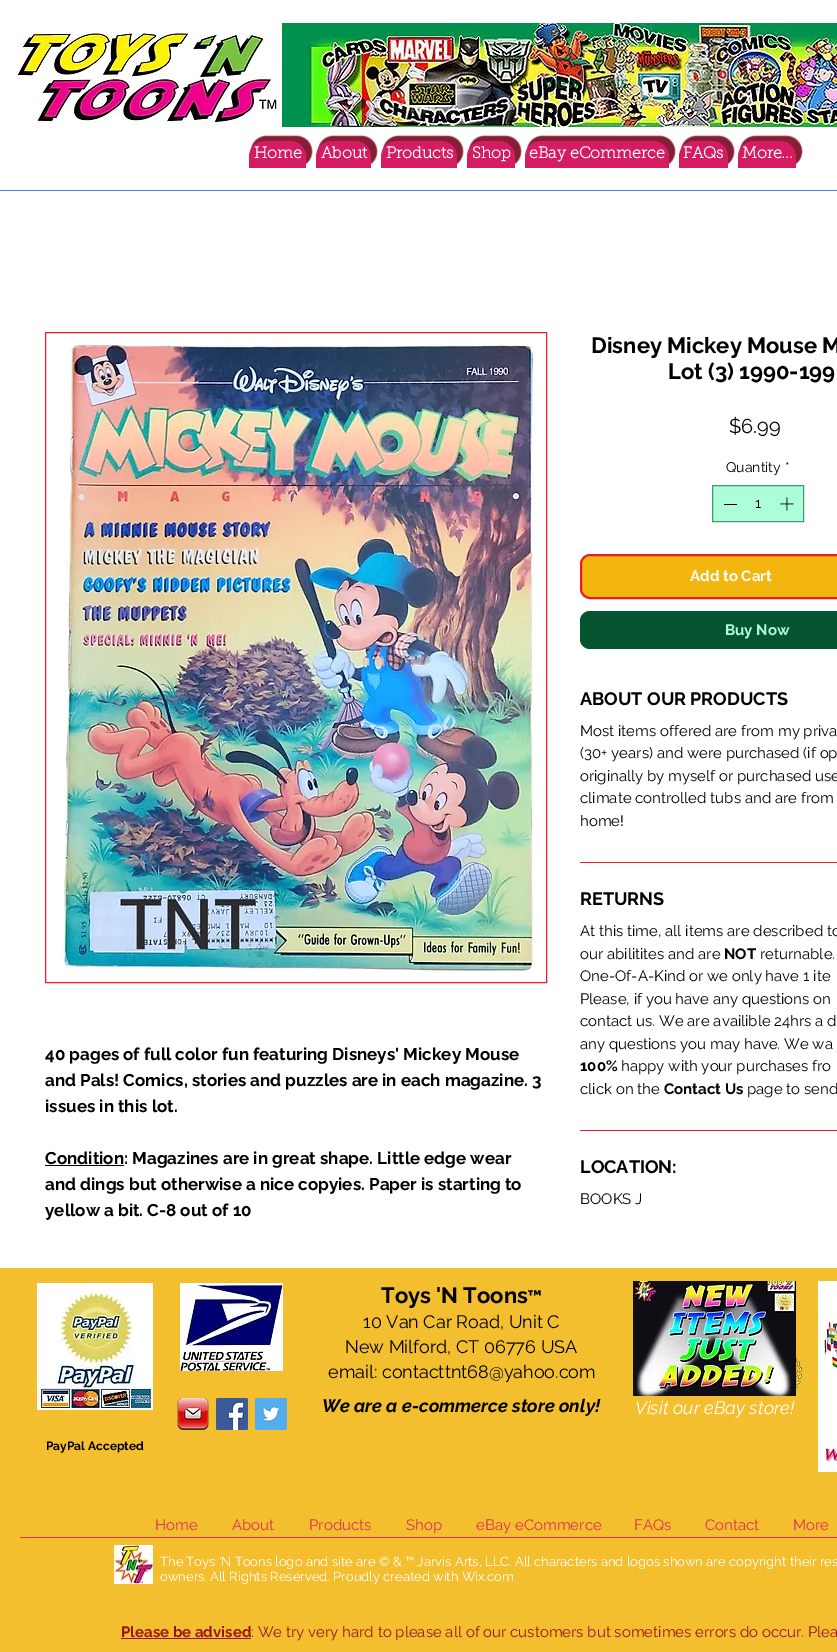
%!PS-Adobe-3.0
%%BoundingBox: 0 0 837 1652
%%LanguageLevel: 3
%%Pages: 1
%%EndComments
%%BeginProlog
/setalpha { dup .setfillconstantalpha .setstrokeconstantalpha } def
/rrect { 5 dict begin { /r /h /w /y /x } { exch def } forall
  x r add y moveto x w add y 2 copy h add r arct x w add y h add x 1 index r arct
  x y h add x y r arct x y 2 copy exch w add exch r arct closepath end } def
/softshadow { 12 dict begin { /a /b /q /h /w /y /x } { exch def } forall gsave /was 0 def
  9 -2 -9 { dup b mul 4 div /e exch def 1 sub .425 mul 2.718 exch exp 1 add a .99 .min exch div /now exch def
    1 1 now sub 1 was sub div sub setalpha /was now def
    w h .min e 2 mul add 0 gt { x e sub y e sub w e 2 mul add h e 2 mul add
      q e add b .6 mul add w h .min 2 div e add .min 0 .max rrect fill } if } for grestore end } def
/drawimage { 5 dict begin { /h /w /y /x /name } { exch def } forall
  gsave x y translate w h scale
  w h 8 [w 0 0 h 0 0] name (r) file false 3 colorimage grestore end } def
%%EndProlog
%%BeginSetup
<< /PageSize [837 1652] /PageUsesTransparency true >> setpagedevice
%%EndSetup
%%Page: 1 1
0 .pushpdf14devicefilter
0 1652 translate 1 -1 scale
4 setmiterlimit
1 setgray
0 0 837 1652 rectfill
(images/1.raw) 17 23 265 104 drawimage
(images/2.raw) 282 23 555 104 drawimage
(images/3.raw) 511 75 16 16 drawimage
0.514 0.098 0.184 setrgbcolor
251 136 61 31 18 0.5 1 softshadow
0.831 0.11 0.384 setrgbcolor
newpath 265 141 moveto 290 141 lineto 299 141 306 148 306 157 curveto 306 168 lineto 249 168 lineto 249 157 lineto 249 148 256 141 265 141 curveto closepath fill
0.514 0.098 0.184 setrgbcolor
318 136 59 31 18 0.5 1 softshadow
0.831 0.11 0.384 setrgbcolor
newpath 332 141 moveto 355 141 lineto 364 141 371 148 371 157 curveto 371 168 lineto 316 168 lineto 316 157 lineto 316 148 323 141 332 141 curveto closepath fill
0.514 0.098 0.184 setrgbcolor
383 136 80 31 18 0.5 1 softshadow
0.831 0.11 0.384 setrgbcolor
newpath 397 141 moveto 441 141 lineto 450 141 457 148 457 157 curveto 457 168 lineto 381 168 lineto 381 157 lineto 381 148 388 141 397 141 curveto closepath fill
0.514 0.098 0.184 setrgbcolor
469 136 52 31 18 0.5 1 softshadow
0.831 0.11 0.384 setrgbcolor
newpath 483 141 moveto 499 141 lineto 508 141 515 148 515 157 curveto 515 168 lineto 467 168 lineto 467 157 lineto 467 148 474 141 483 141 curveto closepath fill
0.514 0.098 0.184 setrgbcolor
527 136 148 31 18 0.5 1 softshadow
0.831 0.11 0.384 setrgbcolor
newpath 541 141 moveto 653 141 lineto 662 141 669 148 669 157 curveto 669 168 lineto 525 168 lineto 525 157 lineto 525 148 532 141 541 141 curveto closepath fill
0.514 0.098 0.184 setrgbcolor
681 136 53 31 18 0.5 1 softshadow
0.831 0.11 0.384 setrgbcolor
newpath 695 141 moveto 712 141 lineto 721 141 728 148 728 157 curveto 728 168 lineto 679 168 lineto 679 157 lineto 679 148 686 141 695 141 curveto closepath fill
0.514 0.098 0.184 setrgbcolor
740 136 62 31 18 0.5 1 softshadow
0.831 0.11 0.384 setrgbcolor
newpath 754 141 moveto 780 141 lineto 789 141 796 148 796 157 curveto 796 168 lineto 738 168 lineto 738 157 lineto 738 148 745 141 754 141 curveto closepath fill
0.306 0.498 1 setrgbcolor
0 190 837 1 rectfill
0.929 0.11 0.141 setrgbcolor
45.5 332.5 501 650 rectstroke
(images/4.raw) 62 341 473 632 drawimage
0 setgray
45 1165 79 1 rectfill
0.675 0.996 0.847 setrgbcolor
newpath 712.5 485.5 moveto 803.5 485.5 lineto 803.5 521.5 lineto 712.5 521.5 lineto closepath gsave fill grestore
0.278 0.596 0.451 setrgbcolor
stroke
0 setgray
724 504 13 1 rectfill
(images/5.raw) 780 497 14 14 drawimage
0.949 0.714 0.059 setrgbcolor
581 555 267 43 9 rrect gsave fill grestore
0.929 0.11 0.141 setrgbcolor
2 setlinewidth
stroke
0.012 0.329 0.184 setrgbcolor
580 611 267 38 10 rrect fill
0.929 0.11 0.141 setrgbcolor
580 862 257 1 rectfill
580 1130 257 1 rectfill
0.957 0.749 0.184 setrgbcolor
0 1268 837 384 rectfill
(images/6.raw) 37 1283 116 127 drawimage
(images/7.raw) 180 1283 103 88 drawimage
(images/8.raw) 796 1358 6 30 drawimage
(images/9.raw) 818 1281 19 117 drawimage
(images/10.raw) 177 1398 32 32 drawimage
(images/11.raw) 216 1398 32 32 drawimage
(images/12.raw) 255 1398 32 32 drawimage
(images/13.raw) 633 1281 163 115 drawimage
1 setgray
818 1398 19 74 rectfill
0.878 0.184 0.345 setrgbcolor
20 1537 817 1 rectfill
(images/14.raw) 114 1545 39 39 drawimage
0.604 0.075 0.094 setrgbcolor
121 1638 130 1 rectfill
/Raleway-Regular [16 0 0 -16 0 0] selectfont
0.012 0.329 0.184 setrgbcolor
543 88 moveto (View points) show
/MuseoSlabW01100-Bold [16 0 0 -16 0 0] selectfont
1 setgray
254 158 moveto (Home) show
321 158 moveto (About) show
386 158 moveto (Products) show
472 158 moveto (Shop) show
529 158 moveto (eBay eCommerce) show
683 158 moveto (FAQs) show
742 158 moveto (More...) show
/Raleway-Bold [17 0 0 -17 0 0] selectfont
0 setgray
45 1060 moveto (40 pages of full color fun featuring Disneys' Mickey Mouse) show
45 1086 moveto (and Pals! Comics, stories and puzzles are in each magazine. 3) show
45 1112 moveto (issues in this lot.) show
45 1164 moveto (Condition: Magazines are in great shape. Little edge wear) show
45 1190 moveto (and dings but otherwise a nice copyies. Paper is starting to) show
45 1216 moveto (yellow a bit. C-8 out of 10) show
/Raleway-Bold [22 0 0 -22 0 0] selectfont
591 353 moveto (Disney Mickey Mouse M) show
668 379 moveto (Lot \(3\) 1990-199) show
/Raleway-Regular [20 0 0 -20 0 0] selectfont
729 433 moveto ($6.99) show
/Raleway-Regular [14 0 0 -14 0 0] selectfont
726 472 moveto (Quantity) show
785 472 moveto (*) show
755 508 moveto (1) show
/Raleway-Bold [15 0 0 -15 0 0] selectfont
1 setgray
690 581 moveto (Add to Cart) show
0.675 0.996 0.847 setrgbcolor
725 635 moveto (Buy Now) show
/Raleway-Bold [18 0 0 -18 0 0] selectfont
0 setgray
580 705 moveto (ABOUT OUR PRODUCTS) show
/Raleway-Regular [15 0 0 -15 0 0] selectfont
580 736 moveto (Most items offered are from my priva) show
580 758 moveto (\(30+ years\) and were purchased \(if op) show
580 781 moveto (originally by myself or purchased use) show
580 803 moveto (climate controlled tubs and are from) show
580 826 moveto (home!) show
/Raleway-Bold [18 0 0 -18 0 0] selectfont
580 905 moveto (RETURNS) show
/Raleway-Regular [15 0 0 -15 0 0] selectfont
580 936 moveto (At this time, all items are described to) show
580 959 moveto (our abilitites and are) show
/Raleway-Bold [15 0 0 -15 0 0] selectfont
724 959 moveto (NOT) show
/Raleway-Regular [15 0 0 -15 0 0] selectfont
760 959 moveto (returnable.) show
580 981 moveto (One-Of-A-Kind or we only have 1 ite) show
580 1004 moveto (Please, if you have any questions on) show
580 1026 moveto (contact us. We are availible 24hrs a d) show
580 1049 moveto (any questions you may have. We wa) show
/Raleway-Bold [15 0 0 -15 0 0] selectfont
580 1071 moveto (100%) show
/Raleway-Regular [15 0 0 -15 0 0] selectfont
621 1071 moveto (happy with your purchases fro) show
580 1094 moveto (click on the) show
/Raleway-Bold [15 0 0 -15 0 0] selectfont
664 1094 moveto (Contact Us) show
/Raleway-Regular [15 0 0 -15 0 0] selectfont
747 1094 moveto (page to send) show
/Raleway-Bold [18 0 0 -18 0 0] selectfont
580 1173 moveto (LOCATION:) show
/Raleway-Regular [15 0 0 -15 0 0] selectfont
580 1204 moveto (BOOKS J) show
/Raleway-Bold [22 0 0 -22 0 0] selectfont
381 1303 moveto (Toys 'N Toons) show
/Raleway-Bold [18 0 0 -18 0 0] selectfont
527 1303 moveto (™) show
/Raleway-Regular [18 0 0 -18 0 0] selectfont
363 1328 moveto (10 Van Car Road, Unit C) show
345 1353 moveto (New Milford, CT 06776 USA) show
328 1378 moveto (email: contacttnt68@yahoo.com) show
/Raleway-BoldItalic [18 0 0 -18 0 0] selectfont
322 1412 moveto (We are a e-commerce store only!) show
/Raleway-Italic [18 0 0 -18 0 0] selectfont
1 setgray
635 1414 moveto (Visit our eBay store!) show
/Raleway-Bold [12 0 0 -12 0 0] selectfont
0 setgray
46 1450 moveto (PayPal Accepted) show
/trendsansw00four-MediumItalic [16 0 0 -16 0 0] selectfont
0.745 0 0.31 setrgbcolor
822 1460 moveto -1 0 (W) ashow
/Raleway-Regular [15 0 0 -15 0 0] selectfont
0.878 0.184 0.345 setrgbcolor
155 1530 moveto (Home) show
232 1530 moveto (About) show
309 1530 moveto (Products) show
406 1530 moveto (Shop) show
476 1530 moveto (eBay eCommerce) show
634 1530 moveto (FAQs) show
705 1530 moveto (Contact) show
793 1530 moveto (More) show
/Raleway-Regular [13 0 0 -13 0 0] selectfont
1 setgray
160 1566 moveto (The Toys 'N Toons logo and site are © & ™ Jarvis Arts, LLC. All characters and logos shown are copyright their res) show
160 1581 moveto (owners. All Rights Reserved. Proudly created with Wix.com) show
/Raleway-Bold [15 0 0 -15 0 0] selectfont
0.604 0.075 0.094 setrgbcolor
121 1637 moveto (Please be advised) show
/Raleway-Regular [15 0 0 -15 0 0] selectfont
251 1637 moveto (: We try very hard to please all of our customers but sometimes errors do occur. Plea) show
.poppdf14devicefilter showpage
%%EOF
